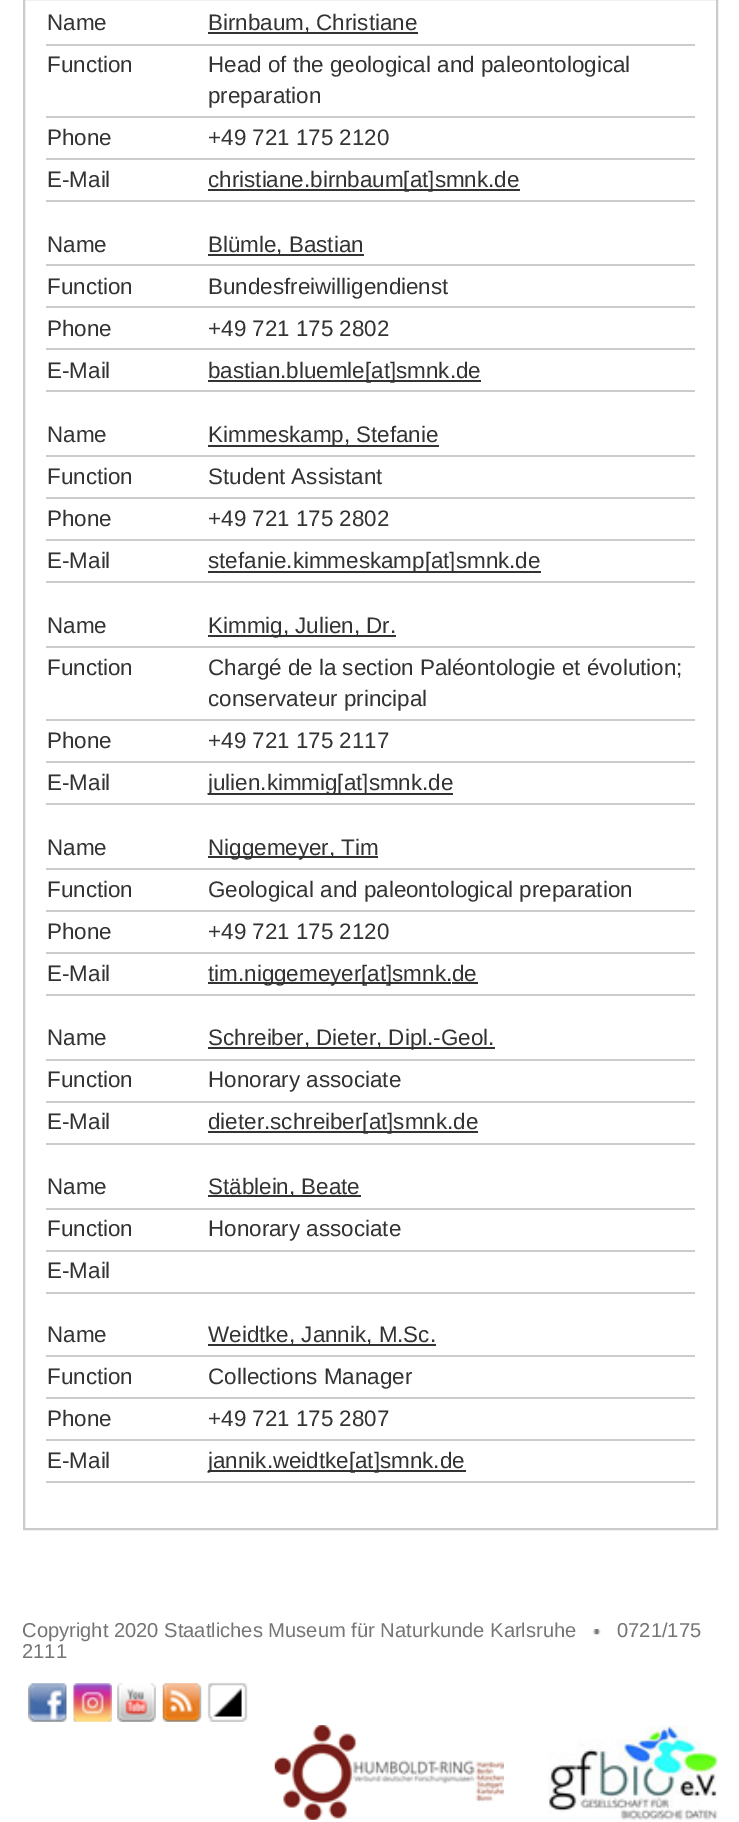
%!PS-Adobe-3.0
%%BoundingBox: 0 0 739 1822
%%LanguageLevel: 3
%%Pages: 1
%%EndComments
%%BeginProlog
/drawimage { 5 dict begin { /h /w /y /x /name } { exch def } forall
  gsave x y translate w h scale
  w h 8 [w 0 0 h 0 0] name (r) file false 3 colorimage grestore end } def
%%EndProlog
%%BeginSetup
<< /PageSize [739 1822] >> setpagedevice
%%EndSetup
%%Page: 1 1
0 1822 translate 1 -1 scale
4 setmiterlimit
1 setgray
0 0 739 1822 rectfill
0.792 0.796 0.8 setrgbcolor
2 setlinewidth
24 -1 693 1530 rectstroke
0.8 setgray
46 44 649 2 rectfill
0.2 setgray
208 32 210 2 rectfill
0.8 setgray
46 116 649 2 rectfill
46 158 649 2 rectfill
46 200 649 2 rectfill
0.2 setgray
208 189 280 2 rectfill
488 189 32 2 rectfill
0.8 setgray
46 264 649 2 rectfill
0.2 setgray
208 254 156 2 rectfill
0.8 setgray
46 306 649 2 rectfill
46 348 649 2 rectfill
46 390 649 2 rectfill
0.2 setgray
208 380 273 2 rectfill
0.8 setgray
46 455 649 2 rectfill
0.2 setgray
208 445 231 2 rectfill
0.8 setgray
46 497 649 2 rectfill
46 539 649 2 rectfill
46 581 649 2 rectfill
0.2 setgray
208 571 301 2 rectfill
509 571 32 2 rectfill
0.8 setgray
46 646 649 2 rectfill
0.2 setgray
208 635 188 2 rectfill
0.8 setgray
46 719 649 2 rectfill
46 761 649 2 rectfill
46 803 649 2 rectfill
0.2 setgray
208 793 214 2 rectfill
422 793 31 2 rectfill
0.8 setgray
46 868 649 2 rectfill
0.2 setgray
208 856 170 2 rectfill
0.8 setgray
46 910 649 2 rectfill
46 952 649 2 rectfill
46 994 649 2 rectfill
0.2 setgray
208 982 238 2 rectfill
446 982 5 2 rectfill
452 982 26 2 rectfill
0.8 setgray
46 1059 649 2 rectfill
0.2 setgray
208 1047 287 2 rectfill
0.8 setgray
46 1101 649 2 rectfill
46 1143 649 2 rectfill
0.2 setgray
208 1131 270 2 rectfill
0.8 setgray
46 1208 649 2 rectfill
0.2 setgray
208 1195 153 2 rectfill
0.8 setgray
46 1250 649 2 rectfill
46 1292 649 2 rectfill
46 1355 649 2 rectfill
0.2 setgray
208 1344 228 2 rectfill
0.8 setgray
46 1397 649 2 rectfill
46 1439 649 2 rectfill
46 1481 649 2 rectfill
0.2 setgray
208 1470 258 2 rectfill
(images/1.raw) 593 1629 8 6 drawimage
(images/2.raw) 28 1683 39 39 drawimage
(images/3.raw) 73 1683 39 39 drawimage
(images/4.raw) 117 1683 39 39 drawimage
(images/5.raw) 162 1683 40 39 drawimage
(images/6.raw) 207 1682 41 40 drawimage
(images/7.raw) 274 1725 230 95 drawimage
(images/8.raw) 548 1725 170 95 drawimage
/LiberationSans-Regular [22.4 0 0 -22.4 0 0] selectfont
47 30 moveto (Name) show
208 30 moveto (Birnbaum, Christiane) show
47 72 moveto (Function) show
208 72 moveto (Head of the geological and paleontological) show
208 103 moveto (preparation) show
47 145 moveto (Phone) show
208 145 moveto (+49 721 175 2120) show
47 187 moveto (E-Mail) show
208 187 moveto (christiane.birnbaum[at]smnk.de) show
47 252 moveto (Name) show
208 252 moveto (Blümle, Bastian) show
47 294 moveto (Function) show
208 294 moveto (Bundesfreiwilligendienst) show
47 336 moveto (Phone) show
208 336 moveto (+49 721 175 2802) show
47 378 moveto (E-Mail) show
208 378 moveto (bastian.bluemle[at]smnk.de) show
47 442 moveto (Name) show
208 442 moveto (Kimmeskamp, Stefanie) show
47 484 moveto (Function) show
208 484 moveto (Student Assistant) show
47 526 moveto (Phone) show
208 526 moveto (+49 721 175 2802) show
47 568 moveto (E-Mail) show
208 568 moveto (stefanie.kimmeskamp[at]smnk.de) show
47 633 moveto (Name) show
208 633 moveto (Kimmig, Julien, Dr.) show
47 675 moveto (Function) show
208 675 moveto (Chargé de la section Paléontologie et évolution;) show
208 706 moveto (conservateur principal) show
47 748 moveto (Phone) show
208 748 moveto (+49 721 175 2117) show
47 790 moveto (E-Mail) show
208 790 moveto (julien.kimmig[at]smnk.de) show
47 855 moveto (Name) show
208 855 moveto (Niggemeyer, Tim) show
47 897 moveto (Function) show
208 897 moveto (Geological and paleontological preparation) show
47 939 moveto (Phone) show
208 939 moveto (+49 721 175 2120) show
47 981 moveto (E-Mail) show
208 981 moveto (tim.niggemeyer[at]smnk.de) show
47 1045 moveto (Name) show
208 1045 moveto (Schreiber, Dieter, Dipl.-Geol.) show
47 1087 moveto (Function) show
208 1087 moveto (Honorary associate) show
47 1129 moveto (E-Mail) show
208 1129 moveto (dieter.schreiber[at]smnk.de) show
47 1194 moveto (Name) show
208 1194 moveto (Stäblein, Beate) show
47 1236 moveto (Function) show
208 1236 moveto (Honorary associate) show
47 1278 moveto (E-Mail) show
47 1342 moveto (Name) show
208 1342 moveto (Weidtke, Jannik, M.Sc.) show
47 1384 moveto (Function) show
208 1384 moveto (Collections Manager) show
47 1426 moveto (Phone) show
208 1426 moveto (+49 721 175 2807) show
47 1468 moveto (E-Mail) show
208 1468 moveto (jannik.weidtke[at]smnk.de) show
/LiberationSans-Regular [20.15 0 0 -20.15 0 0] selectfont
0.459 setgray
22 1637 moveto (Copyright 2020 Staatliches Museum für Naturkunde Karlsruhe) show
617 1637 moveto (0721/175) show
22 1658 moveto (2111) show
showpage
%%EOF
